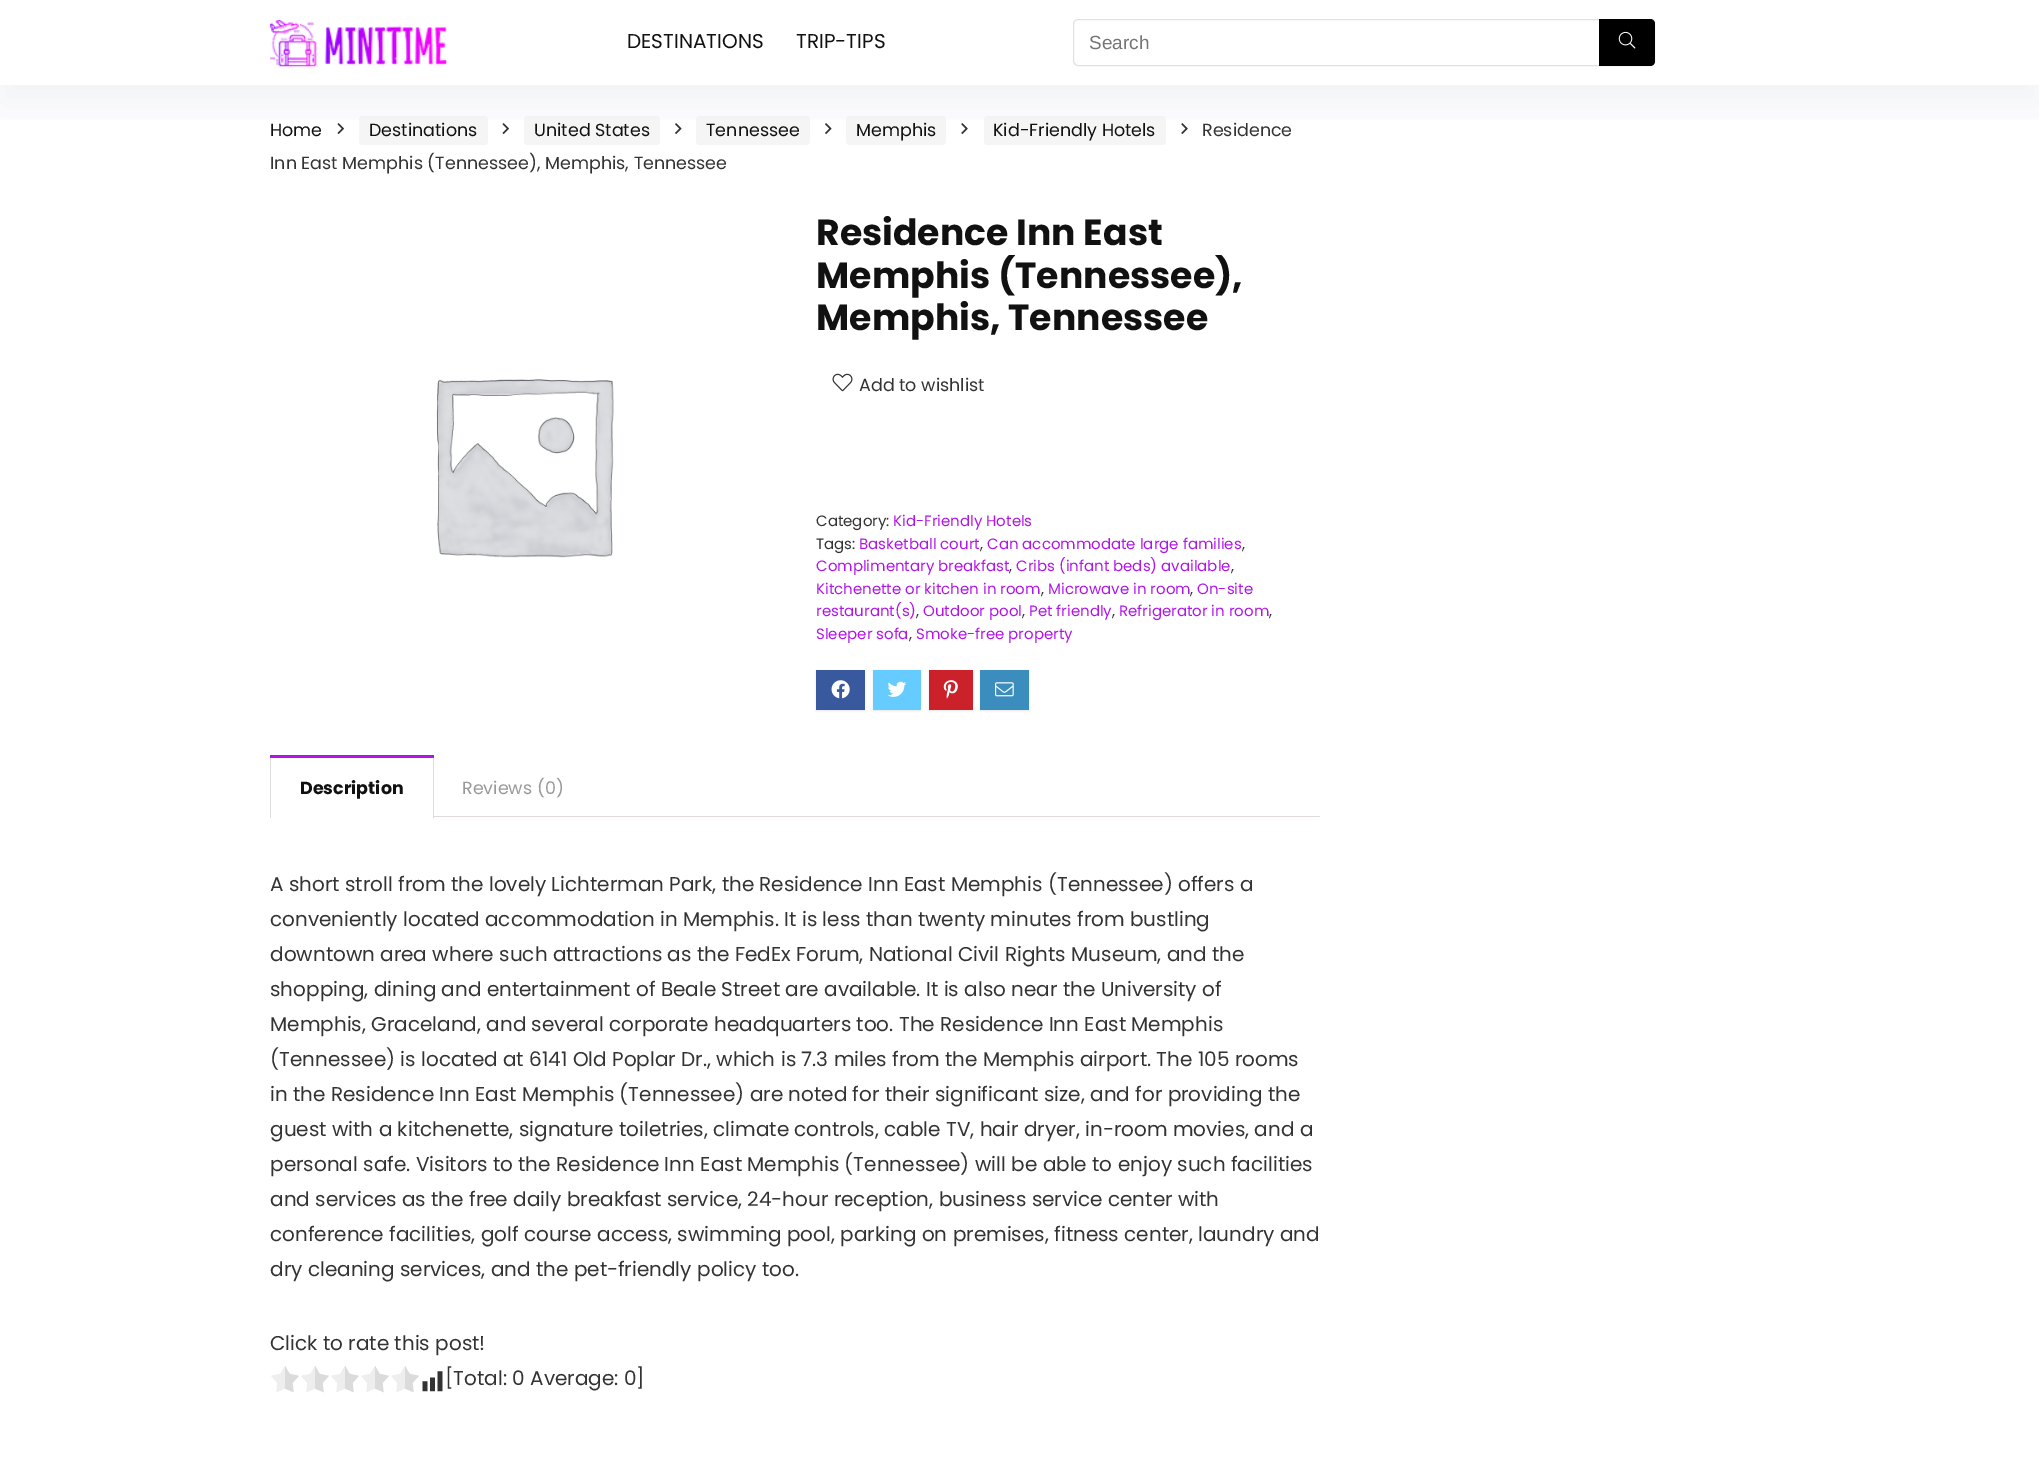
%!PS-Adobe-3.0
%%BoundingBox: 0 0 2039 1461
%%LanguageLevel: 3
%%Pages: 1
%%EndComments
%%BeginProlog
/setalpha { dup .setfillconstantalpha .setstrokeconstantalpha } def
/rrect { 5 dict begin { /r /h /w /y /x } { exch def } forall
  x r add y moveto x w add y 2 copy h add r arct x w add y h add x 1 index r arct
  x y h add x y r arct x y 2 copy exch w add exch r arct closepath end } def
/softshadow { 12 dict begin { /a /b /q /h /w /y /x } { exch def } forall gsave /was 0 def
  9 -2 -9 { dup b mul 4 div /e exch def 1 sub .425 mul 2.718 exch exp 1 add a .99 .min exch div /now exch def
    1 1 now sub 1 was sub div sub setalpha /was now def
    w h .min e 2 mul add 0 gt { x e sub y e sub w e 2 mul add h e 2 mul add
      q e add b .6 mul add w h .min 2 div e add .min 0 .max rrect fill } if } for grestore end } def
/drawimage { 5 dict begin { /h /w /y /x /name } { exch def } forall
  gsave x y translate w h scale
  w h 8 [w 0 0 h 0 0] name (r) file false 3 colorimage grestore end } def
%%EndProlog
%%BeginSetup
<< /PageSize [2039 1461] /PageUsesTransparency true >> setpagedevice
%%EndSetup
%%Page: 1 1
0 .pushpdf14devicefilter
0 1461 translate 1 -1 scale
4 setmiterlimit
1 setgray
0 0 2039 1461 rectfill
(images/3.raw) 337 123 7 11 drawimage
0.961 setgray
359 116 129 29 4 rrect fill
(images/3.raw) 502 123 7 11 drawimage
524 116 136 29 4 rrect fill
(images/4.raw) 675 123 7 11 drawimage
696 116 114 29 4 rrect fill
(images/4.raw) 825 123 7 11 drawimage
846 116 100 29 4 rrect fill
(images/5.raw) 961 123 7 11 drawimage
984 116 182 29 4 rrect fill
(images/5.raw) 1181 123 7 11 drawimage
gsave
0 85 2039 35 rectclip
0.467 0.482 0.573 setrgbcolor
0 19 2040 85 0 19 0.1 softshadow
grestore
(images/1.raw) 270 20 177 47 drawimage
0.882 setgray
1073.5 19.5 581 46 4.5 rrect stroke
0 setgray
newpath 1599 19 moveto 1650 19 lineto 1653 19 1655 21 1655 24 curveto 1655 61 lineto 1655 64 1653 66 1650 66 curveto 1599 66 lineto closepath fill
(images/2.raw) 1618 31 18 18 drawimage
(images/6.raw) 436 379 178 179 drawimage
(images/7.raw) 832 373 21 19 drawimage
0.894 setgray
816 671 49 40 0 1 1 softshadow
0.224 0.349 0.624 setrgbcolor
816 670 49 40 rectfill
(images/8.raw) 831 680 19 19 drawimage
0.894 setgray
873 671 48 40 0 1 1 softshadow
0.4 0.8 1 setrgbcolor
873 670 48 40 rectfill
(images/9.raw) 887 681 20 16 drawimage
0.894 setgray
929 671 44 40 0 1 1 softshadow
0.792 0.129 0.165 setrgbcolor
929 670 44 40 rectfill
(images/10.raw) 943 680 15 19 drawimage
0.894 setgray
980 671 49 40 0 1 1 softshadow
0.231 0.553 0.741 setrgbcolor
980 670 49 40 rectfill
(images/11.raw) 995 682 19 15 drawimage
0.694 0.082 0.91 setrgbcolor
270 755 164 3 rectfill
0.867 setgray
433 758 1 60 rectfill
270 758 1 60 rectfill
0.878 0.855 0.875 setrgbcolor
434 816 886 1 rectfill
(images/12.raw) 271 1366 148 27 drawimage
(images/13.raw) 422 1371 21 21 drawimage
/Poppins-Regular [20 0 0 -20 0 0] selectfont
0.067 setgray
627 48 moveto (DESTINATIONS) show
796 48 moveto (TRIP-TIPS) show
/LiberationSans-Regular [19 0 0 -19 0 0] selectfont
0.459 setgray
1089 49 moveto (Search) show
/Poppins-Regular [17.5 0 0 -17.5 0 0] selectfont
0.067 setgray
270 136 moveto (Home) show
369 136 moveto (Destinations) show
534 136 moveto (United States) show
706 136 moveto (Tennessee) show
856 136 moveto (Memphis) show
993 136 moveto (Kid-Friendly Hotels) show
0.2 setgray
1202 136 moveto (Residence) show
270 169 moveto (Inn East Memphis \(Tennessee\), Memphis, Tennessee) show
/Poppins-Bold [36.25 0 0 -36.25 0 0] selectfont
0.067 setgray
816 245 moveto (Residence Inn East) show
816 288 moveto (Memphis \(Tennessee\),) show
816 330 moveto (Memphis, Tennessee) show
/Poppins-Regular [17.5 0 0 -17.5 0 0] selectfont
0.2 setgray
859 391 moveto (Add to wishlist) show
/Poppins-Regular [15 0 0 -15 0 0] selectfont
816 526 moveto (Category:) show
0.694 0.082 0.91 setrgbcolor
893 526 moveto (Kid-Friendly Hotels) show
0.2 setgray
816 549 moveto (Tags:) show
0.694 0.082 0.91 setrgbcolor
859 549 moveto (Basketball court) show
0.2 setgray
980 549 moveto (,) show
0.694 0.082 0.91 setrgbcolor
987 549 moveto (Can accommodate large families) show
0.2 setgray
1242 549 moveto (,) show
0.694 0.082 0.91 setrgbcolor
816 571 moveto (Complimentary breakfast) show
0.2 setgray
1009 571 moveto (,) show
0.694 0.082 0.91 setrgbcolor
1016 571 moveto (Cribs \(infant beds\) available) show
0.2 setgray
1231 571 moveto (,) show
0.694 0.082 0.91 setrgbcolor
816 594 moveto (Kitchenette or kitchen in room) show
0.2 setgray
1041 594 moveto (,) show
0.694 0.082 0.91 setrgbcolor
1048 594 moveto (Microwave in room) show
0.2 setgray
1190 594 moveto (,) show
0.694 0.082 0.91 setrgbcolor
1197 594 moveto (On-site) show
816 616 moveto (restaurant\(s\)) show
0.2 setgray
916 616 moveto (,) show
0.694 0.082 0.91 setrgbcolor
923 616 moveto (Outdoor pool) show
0.2 setgray
1022 616 moveto (,) show
0.694 0.082 0.91 setrgbcolor
1029 616 moveto (Pet friendly) show
0.2 setgray
1112 616 moveto (,) show
0.694 0.082 0.91 setrgbcolor
1119 616 moveto (Refrigerator in room) show
0.2 setgray
1269 616 moveto (,) show
0.694 0.082 0.91 setrgbcolor
816 639 moveto (Sleeper sofa) show
0.2 setgray
909 639 moveto (,) show
0.694 0.082 0.91 setrgbcolor
916 639 moveto (Smoke-free property) show
/Poppins-Bold [17.5 0 0 -17.5 0 0] selectfont
0.067 setgray
300 794 moveto (Description) show
/Poppins-Regular [17.5 0 0 -17.5 0 0] selectfont
0.6 setgray
462 794 moveto (Reviews \(0\)) show
/Poppins-Regular [20 0 0 -20 0 0] selectfont
0.2 setgray
270 891 moveto (A short stroll from the lovely Lichterman Park, the Residence Inn East Memphis \(Tennessee\) offers a) show
270 926 moveto (conveniently located accommodation in Memphis. It is less than twenty minutes from bustling) show
270 961 moveto (downtown area where such attractions as the FedEx Forum, National Civil Rights Museum, and the) show
270 996 moveto (shopping, dining and entertainment of Beale Street are available. It is also near the University of) show
270 1031 moveto (Memphis, Graceland, and several corporate headquarters too. The Residence Inn East Memphis) show
270 1066 moveto (\(Tennessee\) is located at 6141 Old Poplar Dr., which is 7.3 miles from the Memphis airport. The 105 rooms) show
270 1101 moveto (in the Residence Inn East Memphis \(Tennessee\) are noted for their significant size, and for providing the) show
270 1136 moveto (guest with a kitchenette, signature toiletries, climate controls, cable TV, hair dryer, in-room movies, and a) show
270 1171 moveto (personal safe. Visitors to the Residence Inn East Memphis \(Tennessee\) will be able to enjoy such facilities) show
270 1206 moveto (and services as the free daily breakfast service, 24-hour reception, business service center with) show
270 1241 moveto (conference facilities, golf course access, swimming pool, parking on premises, fitness center, laundry and) show
270 1276 moveto (dry cleaning services, and the pet-friendly policy too.) show
270 1350 moveto (Click to rate this post!) show
445 1385 moveto ([Total: 0 Average: 0]) show
.poppdf14devicefilter showpage
%%EOF
